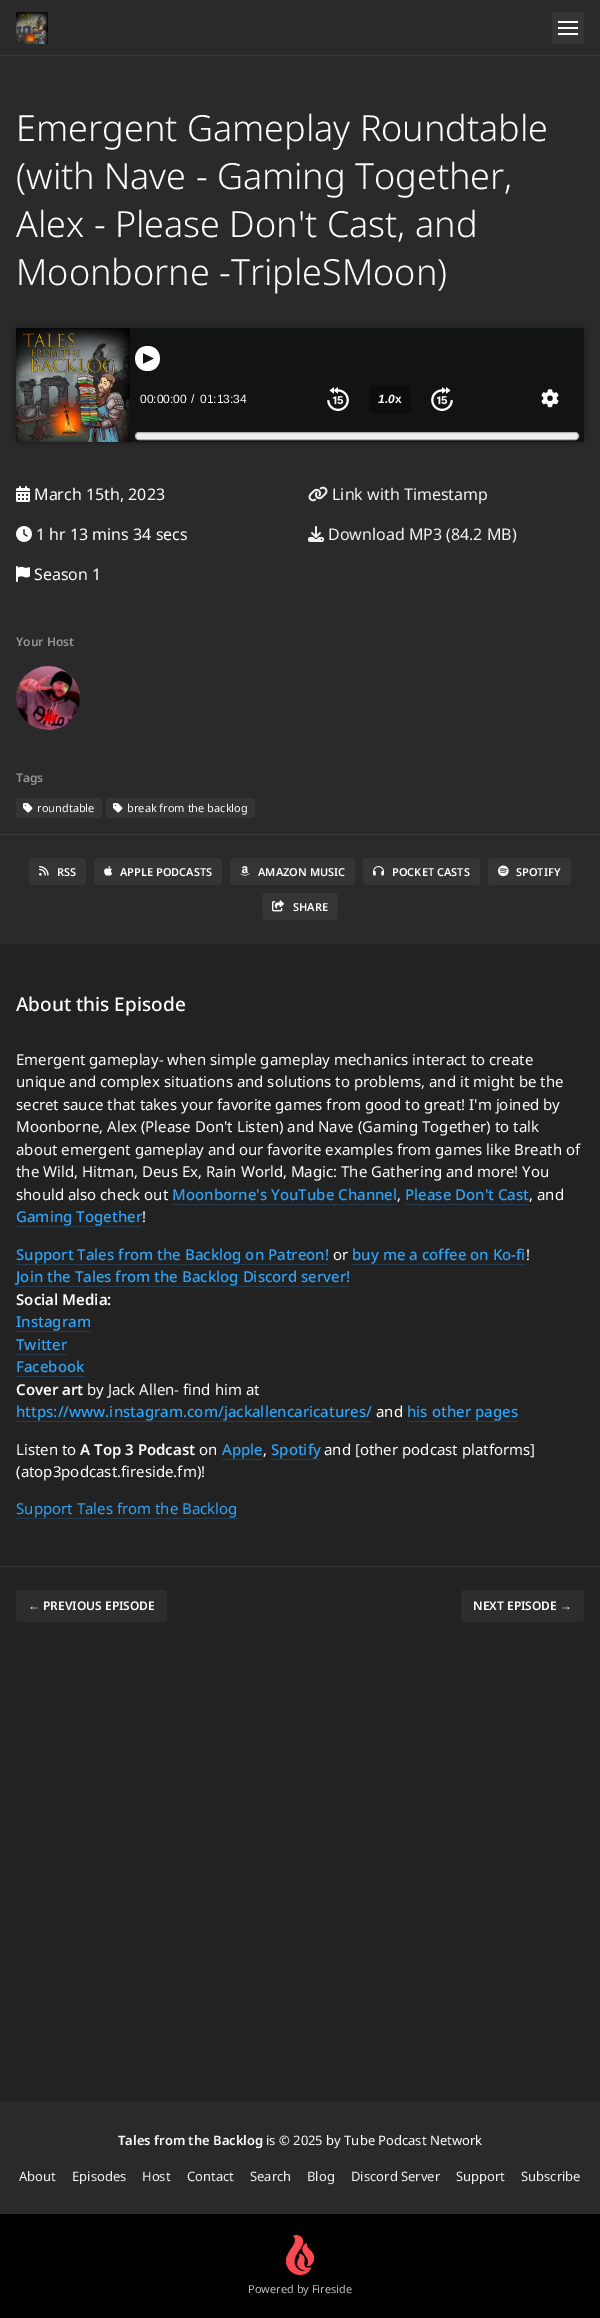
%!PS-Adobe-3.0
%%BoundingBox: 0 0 600 2318
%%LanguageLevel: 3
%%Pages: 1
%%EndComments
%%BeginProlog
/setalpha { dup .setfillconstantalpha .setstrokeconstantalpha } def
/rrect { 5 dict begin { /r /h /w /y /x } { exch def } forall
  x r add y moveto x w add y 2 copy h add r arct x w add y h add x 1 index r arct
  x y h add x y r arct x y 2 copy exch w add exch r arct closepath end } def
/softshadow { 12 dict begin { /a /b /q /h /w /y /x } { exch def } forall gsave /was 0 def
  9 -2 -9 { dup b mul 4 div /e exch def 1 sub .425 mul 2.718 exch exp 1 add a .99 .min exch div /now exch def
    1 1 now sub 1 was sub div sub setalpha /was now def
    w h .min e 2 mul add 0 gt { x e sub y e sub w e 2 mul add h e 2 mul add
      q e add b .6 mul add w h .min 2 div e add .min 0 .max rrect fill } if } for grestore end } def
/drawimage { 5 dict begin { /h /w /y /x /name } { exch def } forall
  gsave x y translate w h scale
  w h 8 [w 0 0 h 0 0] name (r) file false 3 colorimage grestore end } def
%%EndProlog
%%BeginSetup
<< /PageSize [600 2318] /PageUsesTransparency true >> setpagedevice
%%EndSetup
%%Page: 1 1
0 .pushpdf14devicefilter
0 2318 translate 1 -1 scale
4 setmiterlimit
0.133 setgray
0 0 600 2318 rectfill
0.165 setgray
0 0 600 55 rectfill
0.231 setgray
0 55 600 1 rectfill
(images/1.raw) 16 12 32 32 drawimage
0.208 setgray
552 12 32 32 2 rrect fill
1 setgray
558 21 20 2 rectfill
558 27 20 2 rectfill
558 33 20 2 rectfill
0.165 setgray
0 56 600 778 rectfill
0 setgray
19 331 562 108 0 4.5 0.8 softshadow
0.071 0.075 0.075 setrgbcolor
130 328 454 114 rectfill
(images/2.raw) 16 328 114 5 drawimage
(images/3.raw) 16 333 114 109 drawimage
1 setgray
newpath 147.5 346 moveto 131 346 131 371 147.5 371 curveto 164 371 164 346 147.5 346 curveto closepath 143 364 moveto 143 353 lineto 154.5 358.5 lineto closepath fill
(images/4.raw) 327 387 22 24 drawimage
0.051 setgray
369 385 42 28 4 rrect fill
(images/5.raw) 431 387 22 24 drawimage
(images/6.raw) 541 389 18 19 drawimage
0.937 setgray
135.5 432.5 443 7 3.5 rrect gsave fill grestore
0.698 setgray
stroke
(images/7.raw) 16 486 14 16 drawimage
(images/8.raw) 16 526 16 16 drawimage
(images/9.raw) 16 566 14 16 drawimage
(images/10.raw) 308 486 20 16 drawimage
(images/11.raw) 308 526 16 16 drawimage
(images/12.raw) 16 666 64 64 drawimage
0.208 setgray
16 798 86 20 3 rrect fill
(images/13.raw) 23 803 10 10 drawimage
106 798 149 20 3 rrect fill
(images/13.raw) 113 803 10 10 drawimage
0.165 setgray
0 835 600 109 rectfill
0.231 setgray
0 834 600 1 rectfill
0.208 setgray
29 858 57 27 4 rrect fill
(images/14.raw) 39 866 10 10 drawimage
94 858 128 27 4 rrect fill
(images/15.raw) 104 866 9 10 drawimage
230 858 125 27 4 rrect fill
(images/16.raw) 240 866 10 10 drawimage
363 858 117 27 4 rrect fill
(images/17.raw) 373 866 11 10 drawimage
488 858 83 27 4 rrect fill
(images/18.raw) 498 865 11 12 drawimage
262 893 76 27 4 rrect fill
(images/19.raw) 272 900 12 12 drawimage
0.141 0.235 0.302 setrgbcolor
172 1204 225 1 rectfill
405 1204 124 1 rectfill
16 1226 126 1 rectfill
16 1264 313 1 rectfill
352 1264 174 1 rectfill
16 1286 334 1 rectfill
16 1331 75 1 rectfill
16 1354 51 1 rectfill
16 1376 69 1 rectfill
16 1421 356 1 rectfill
407 1421 111 1 rectfill
222 1459 41 1 rectfill
271 1459 50 1 rectfill
16 1518 222 1 rectfill
0.204 setgray
0 1566 600 1 rectfill
0.176 setgray
16 1590 151 32 4 rrect fill
461 1590 123 32 4 rrect fill
0.165 setgray
0 2102 600 112 rectfill
0 setgray
0 2214 600 104 rectfill
(images/20.raw) 285 2235 30 40 drawimage
/NotoSans-Light [36 0 0 -36 0 0] selectfont
1 setgray
16 141 moveto (Emergent Gameplay Roundtable) show
16 189 moveto (\(with Nave - Gaming Together,) show
16 237 moveto (Alex - Please Don't Cast, and) show
16 285 moveto (Moonborne -TripleSMoon\)) show
/LiberationSans-Regular [12 0 0 -12 0 0] selectfont
140 403 moveto (00:00:00) show
191 403 moveto (/) show
200 403 moveto (01:13:34) show
/LiberationSans-BoldItalic [12 0 0 -12 0 0] selectfont
378 403 moveto (1.0) show
/LiberationSans-Bold [12 0 0 -12 0 0] selectfont
395 403 moveto (x) show
/NotoSans-Regular [16 0 0 -16 0 0] selectfont
34 500 moveto (March 15th, 2023) show
36 540 moveto (1 hr 13 mins 34 secs) show
34 580 moveto (Season 1) show
0.949 setgray
332 500 moveto (Link with Timestamp) show
328 540 moveto (Download MP3 \(84.2 MB\)) show
/NotoSans-SemiBold [12 0 0 -12 0 0] selectfont
0.584 setgray
16 646 moveto (Your Host) show
16 782 moveto (Tags) show
/NotoSans-Regular [11 0 0 -11 0 0] selectfont
1 setgray
37 812 moveto (roundtable) show
127 812 moveto (break from the backlog) show
/NotoSans-SemiBold [11 0 0 -11 0 0] selectfont
57 876 moveto (RSS) show
120 876 moveto (APPLE PODCASTS) show
258 876 moveto (AMAZON MUSIC) show
392 876 moveto (POCKET CASTS) show
516 876 moveto (SPOTIFY) show
293 911 moveto (SHARE) show
/NotoSans-Medium [19 0 0 -19 0 0] selectfont
16 1011 moveto (About this Episode) show
/NotoSans-Regular [15 0 0 -15 0 0] selectfont
16 1065 moveto (Emergent gameplay- when simple gameplay mechanics interact to create) show
16 1087 moveto (unique and complex situations and solutions to problems, and it might be the) show
16 1110 moveto (secret sauce that takes your favorite games from good to great! I'm joined by) show
16 1132 moveto (Moonborne, Alex \(Please Don't Listen\) and Nave \(Gaming Together\) to talk) show
16 1155 moveto (about emergent gameplay and our favorite examples from games like Breath of) show
16 1177 moveto (the Wild, Hitman, Deus Ex, Rain World, Magic: The Gathering and more! You) show
16 1200 moveto (should also check out) show
/NotoSans-Medium [15 0 0 -15 0 0] selectfont
0.18 0.643 0.976 setrgbcolor
172 1200 moveto (Moonborne's YouTube Channel) show
/NotoSans-Regular [15 0 0 -15 0 0] selectfont
1 setgray
397 1200 moveto (,) show
/NotoSans-Medium [15 0 0 -15 0 0] selectfont
0.18 0.643 0.976 setrgbcolor
405 1200 moveto (Please Don't Cast) show
/NotoSans-Regular [15 0 0 -15 0 0] selectfont
1 setgray
529 1200 moveto (, and) show
/NotoSans-Medium [15 0 0 -15 0 0] selectfont
0.18 0.643 0.976 setrgbcolor
16 1222 moveto (Gaming Together) show
/NotoSans-Regular [15 0 0 -15 0 0] selectfont
1 setgray
142 1222 moveto (!) show
/NotoSans-Medium [15 0 0 -15 0 0] selectfont
0.18 0.643 0.976 setrgbcolor
16 1260 moveto (Support Tales from the Backlog on Patreon!) show
/NotoSans-Regular [15 0 0 -15 0 0] selectfont
1 setgray
333 1260 moveto (or) show
/NotoSans-Medium [15 0 0 -15 0 0] selectfont
0.18 0.643 0.976 setrgbcolor
352 1260 moveto (buy me a coffee on Ko-fi) show
/NotoSans-Regular [15 0 0 -15 0 0] selectfont
1 setgray
526 1260 moveto (!) show
/NotoSans-Medium [15 0 0 -15 0 0] selectfont
0.18 0.643 0.976 setrgbcolor
16 1282 moveto (Join the Tales from the Backlog Discord server!) show
/NotoSans-SemiBold [15 0 0 -15 0 0] selectfont
1 setgray
16 1305 moveto (Social Media:) show
/NotoSans-Medium [15 0 0 -15 0 0] selectfont
0.18 0.643 0.976 setrgbcolor
16 1327 moveto (Instagram) show
16 1350 moveto (Twitter) show
16 1372 moveto (Facebook) show
/NotoSans-SemiBold [15 0 0 -15 0 0] selectfont
1 setgray
16 1395 moveto (Cover art) show
/NotoSans-Regular [15 0 0 -15 0 0] selectfont
87 1395 moveto (by Jack Allen- find him at) show
/NotoSans-Medium [15 0 0 -15 0 0] selectfont
0.18 0.643 0.976 setrgbcolor
16 1417 moveto (https://www.instagram.com/jackallencaricatures/) show
/NotoSans-Regular [15 0 0 -15 0 0] selectfont
1 setgray
376 1417 moveto (and) show
/NotoSans-Medium [15 0 0 -15 0 0] selectfont
0.18 0.643 0.976 setrgbcolor
407 1417 moveto (his other pages) show
/NotoSans-Regular [15 0 0 -15 0 0] selectfont
1 setgray
16 1455 moveto (Listen to) show
/NotoSans-SemiBold [15 0 0 -15 0 0] selectfont
80 1455 moveto (A Top 3 Podcast) show
/NotoSans-Regular [15 0 0 -15 0 0] selectfont
199 1455 moveto (on) show
/NotoSans-Medium [15 0 0 -15 0 0] selectfont
0.18 0.643 0.976 setrgbcolor
222 1455 moveto (Apple) show
/NotoSans-Regular [15 0 0 -15 0 0] selectfont
1 setgray
263 1455 moveto (,) show
/NotoSans-Medium [15 0 0 -15 0 0] selectfont
0.18 0.643 0.976 setrgbcolor
271 1455 moveto (Spotify) show
/NotoSans-Regular [15 0 0 -15 0 0] selectfont
1 setgray
324 1455 moveto (and [other podcast platforms]) show
16 1477 moveto (\(atop3podcast.fireside.fm\)!) show
0.18 0.643 0.976 setrgbcolor
16 1514 moveto (Support Tales from the Backlog) show
/LiberationSans-Bold [12 0 0 -12 0 0] selectfont
1 setgray
28 1610 moveto (←) show
/NotoSans-SemiBold [12 0 0 -12 0 0] selectfont
43 1610 moveto (PREVIOUS EPISODE) show
473 1610 moveto (NEXT EPISODE) show
/LiberationSans-Bold [12 0 0 -12 0 0] selectfont
560 1610 moveto (→) show
/NotoSans-SemiBold [13 0 0 -13 0 0] selectfont
118 2145 moveto (Tales from the Backlog) show
/NotoSans-Regular [13 0 0 -13 0 0] selectfont
266 2145 moveto (is © 2025 by Tube Podcast Network) show
0.949 setgray
19 2181 moveto (About) show
72 2181 moveto (Episodes) show
142 2181 moveto (Host) show
187 2181 moveto (Contact) show
250 2181 moveto (Search) show
307 2181 moveto (Blog) show
351 2181 moveto (Discord Server) show
456 2181 moveto (Support) show
521 2181 moveto (Subscribe) show
/NotoSans-Regular [11 0 0 -11 0 0] selectfont
0.733 setgray
248 2293 moveto (Powered by Fireside) show
.poppdf14devicefilter showpage
%%EOF
